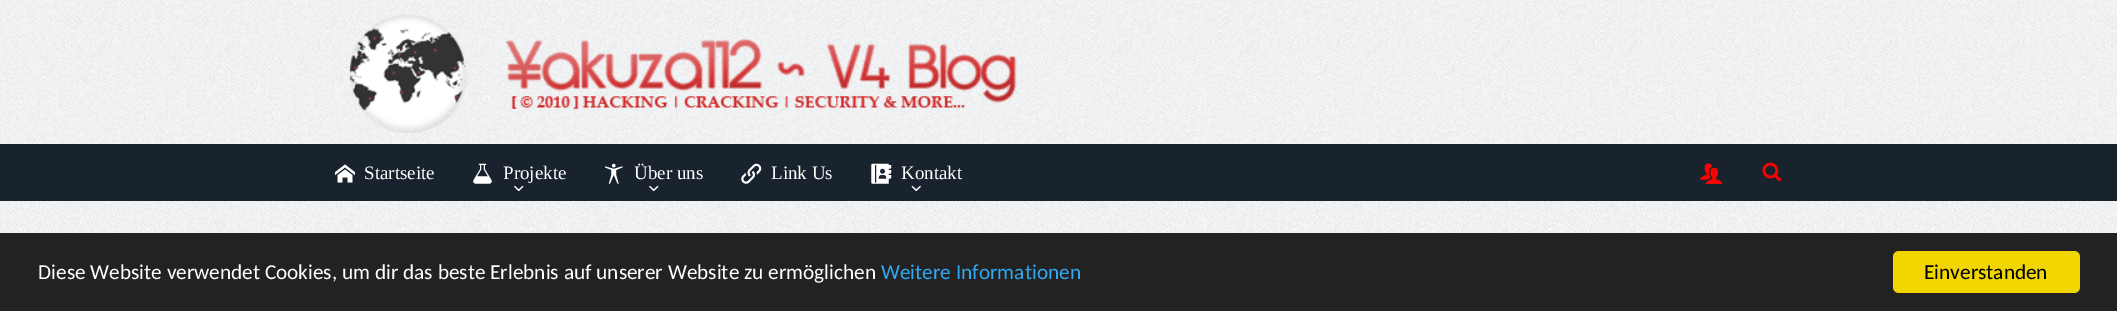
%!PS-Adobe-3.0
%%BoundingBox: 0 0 2117 311
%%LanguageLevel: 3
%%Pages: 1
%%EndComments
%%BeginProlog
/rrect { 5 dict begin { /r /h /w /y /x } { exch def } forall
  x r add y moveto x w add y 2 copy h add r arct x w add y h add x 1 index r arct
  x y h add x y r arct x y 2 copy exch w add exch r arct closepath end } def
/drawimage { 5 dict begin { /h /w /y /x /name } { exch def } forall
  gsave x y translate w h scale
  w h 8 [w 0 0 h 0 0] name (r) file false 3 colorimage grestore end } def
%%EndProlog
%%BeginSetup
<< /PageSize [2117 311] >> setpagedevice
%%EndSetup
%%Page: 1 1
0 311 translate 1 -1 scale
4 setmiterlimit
1 setgray
0 0 2117 311 rectfill
(images/1.raw) 0 143 2117 90 drawimage
(images/2.raw) 0 0 2117 144 drawimage
(images/3.raw) 349 14 668 119 drawimage
0.098 0.137 0.176 setrgbcolor
0 144 2117 57 rectfill
(images/4.raw) 335 164 20 19 drawimage
(images/5.raw) 473 163 19 21 drawimage
(images/6.raw) 514 185 10 7 drawimage
(images/7.raw) 605 163 18 21 drawimage
(images/6.raw) 649 185 10 7 drawimage
(images/8.raw) 741 163 21 21 drawimage
(images/9.raw) 871 163 21 21 drawimage
(images/10.raw) 911 185 10 7 drawimage
(images/11.raw) 1700 163 23 21 drawimage
(images/12.raw) 1762 162 20 20 drawimage
0.133 setgray
0 233 2117 78 rectfill
0.945 0.839 0 setrgbcolor
1893 251 187 42 6 rrect fill
/LiberationSerif-Regular [19 0 0 -19 0 0] selectfont
1 setgray
364 179 moveto (Startseite) show
503 179 moveto (Projekte) show
634 179 moveto (Über uns) show
771 179 moveto (Link Us) show
901 179 moveto (Kontakt) show
/Carlito-Regular [21.25 0 0 -21.25 0 0] selectfont
38 279 moveto (Diese Website verwendet Cookies, um dir das beste Erlebnis auf unserer Website zu ermöglichen) show
0.192 0.659 0.941 setrgbcolor
881 279 moveto (Weitere Informationen) show
0 setgray
1924 279 moveto (Einverstanden) show
showpage
%%EOF
